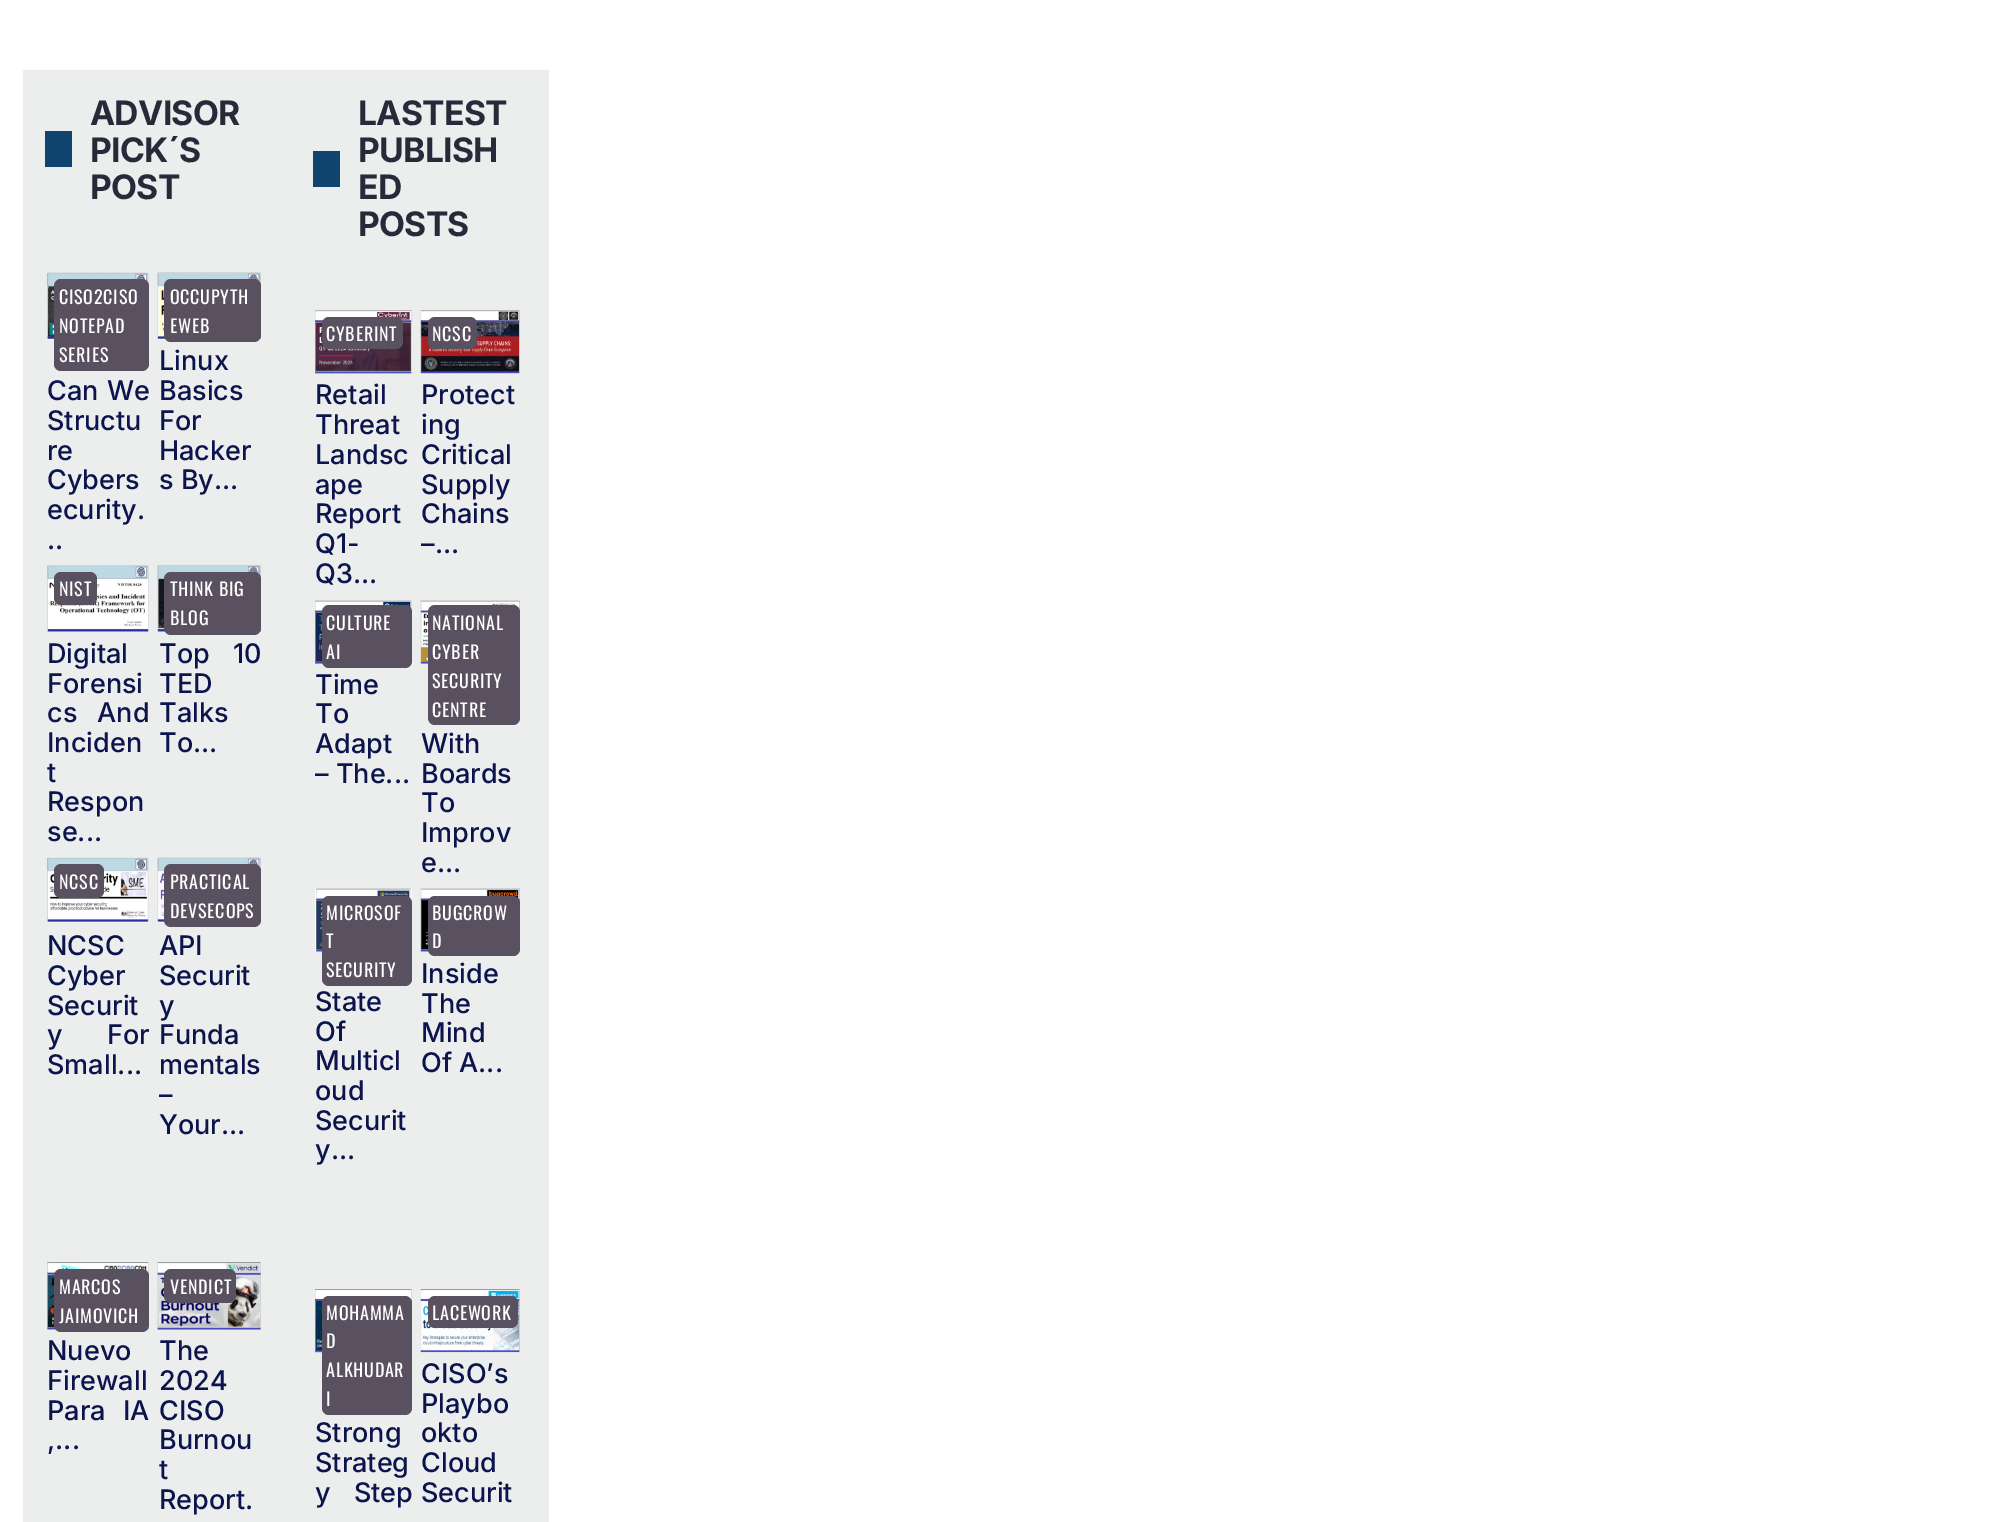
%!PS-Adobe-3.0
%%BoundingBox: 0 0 2003 1522
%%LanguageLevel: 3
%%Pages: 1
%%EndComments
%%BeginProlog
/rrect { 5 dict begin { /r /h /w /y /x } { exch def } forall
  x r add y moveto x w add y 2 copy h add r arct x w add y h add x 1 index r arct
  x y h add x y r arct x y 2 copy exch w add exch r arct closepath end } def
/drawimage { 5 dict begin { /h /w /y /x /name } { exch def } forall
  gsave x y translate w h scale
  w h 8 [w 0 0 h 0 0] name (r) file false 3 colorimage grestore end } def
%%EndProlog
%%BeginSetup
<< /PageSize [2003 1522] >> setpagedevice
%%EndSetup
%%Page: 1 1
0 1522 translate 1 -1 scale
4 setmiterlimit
1 setgray
0 0 2003 1522 rectfill
0.922 0.933 0.929 setrgbcolor
23 70 526 1452 rectfill
0.067 0.263 0.435 setrgbcolor
45 131 27 36 rectfill
(images/1.raw) 47 272 102 68 drawimage
0.349 0.318 0.373 setrgbcolor
54 279 95 92 7 rrect fill
(images/2.raw) 157 272 104 68 drawimage
164 279 97 63 7 rrect fill
(images/3.raw) 47 565 102 68 drawimage
54 572 43 33 7 rrect fill
(images/4.raw) 157 564 104 69 drawimage
164 572 97 63 7 rrect fill
(images/5.raw) 47 857 102 66 drawimage
54 864 50 34 7 rrect fill
(images/6.raw) 157 857 104 66 drawimage
164 864 97 63 7 rrect fill
(images/7.raw) 47 1262 102 68 drawimage
54 1269 95 63 7 rrect fill
(images/8.raw) 157 1262 104 68 drawimage
164 1269 72 34 7 rrect fill
0.067 0.263 0.435 setrgbcolor
313 151 27 36 rectfill
(images/9.raw) 315 310 97 64 drawimage
0.349 0.318 0.373 setrgbcolor
322 317 81 32 7 rrect fill
(images/10.raw) 420 310 100 64 drawimage
428 317 49 32 7 rrect fill
(images/11.raw) 315 600 97 64 drawimage
322 605 90 63 7 rrect fill
(images/12.raw) 420 600 100 64 drawimage
428 605 92 120 7 rrect fill
(images/13.raw) 315 888 97 64 drawimage
322 896 90 90 7 rrect fill
(images/14.raw) 420 888 100 64 drawimage
428 896 92 60 7 rrect fill
(images/15.raw) 315 1289 97 64 drawimage
322 1296 90 119 7 rrect fill
(images/16.raw) 420 1289 100 64 drawimage
428 1296 90 32 7 rrect fill
/Inter-Bold [33.75 0 0 -33.75 0 0] selectfont
0.161 0.161 0.227 setrgbcolor
90 125 moveto -0.75 0 (ADVISOR) ashow
90 162 moveto -0.75 0 (PICK´S) ashow
90 199 moveto -0.75 0 (POST) ashow
/Oswald-Regular [18 0 0 -18 0 0] selectfont
1 setgray
59 304 moveto 0.75 0 (CISO2CISO) ashow
59 333 moveto 0.75 0 (NOTEPAD) ashow
59 362 moveto 0.75 0 (SERIES) ashow
/Inter-Medium [27 0 0 -27 0 0] selectfont
0.043 0.078 0.298 setrgbcolor
47 400 moveto 1 0 32 (Can We) widthshow
47 430 moveto (Structu) show
47 460 moveto (re) show
47 489 moveto (Cybers) show
47 519 moveto (ecurity.) show
47 549 moveto (..) show
/Oswald-Regular [18 0 0 -18 0 0] selectfont
1 setgray
170 304 moveto 0.75 0 (OCCUPYTH) ashow
170 333 moveto 0.75 0 (EWEB) ashow
/Inter-Medium [27 0 0 -27 0 0] selectfont
0.043 0.078 0.298 setrgbcolor
159 370 moveto (Linux) show
159 400 moveto (Basics) show
159 430 moveto (For) show
159 460 moveto (Hacker) show
159 489 moveto (s By...) show
/Oswald-Regular [18 0 0 -18 0 0] selectfont
1 setgray
59 596 moveto 0.75 0 (NIST) ashow
/Inter-Medium [27 0 0 -27 0 0] selectfont
0.043 0.078 0.298 setrgbcolor
47 663 moveto (Digital) show
47 693 moveto (Forensi) show
47 722 moveto 13 0 32 (cs And) widthshow
47 752 moveto (Inciden) show
47 782 moveto (t) show
47 811 moveto (Respon) show
47 841 moveto (se...) show
/Oswald-Regular [18 0 0 -18 0 0] selectfont
1 setgray
170 596 moveto 0.75 0 (THINK BIG) ashow
170 625 moveto 0.75 0 (BLOG) ashow
/Inter-Medium [27 0 0 -27 0 0] selectfont
0.043 0.078 0.298 setrgbcolor
159 663 moveto 16 0 32 (Top 10) widthshow
159 693 moveto (TED) show
159 722 moveto (Talks) show
159 752 moveto (To...) show
/Oswald-Regular [18 0 0 -18 0 0] selectfont
1 setgray
59 889 moveto 0.75 0 (NCSC) ashow
/Inter-Medium [27 0 0 -27 0 0] selectfont
0.043 0.078 0.298 setrgbcolor
47 955 moveto (NCSC) show
47 985 moveto (Cyber) show
47 1015 moveto (Securit) show
47 1044 moveto 37 0 32 (y For) widthshow
47 1074 moveto (Small...) show
/Oswald-Regular [18 0 0 -18 0 0] selectfont
1 setgray
170 889 moveto 0.75 0 (PRACTICAL) ashow
170 918 moveto 0.75 0 (DEVSECOPS) ashow
/Inter-Medium [27 0 0 -27 0 0] selectfont
0.043 0.078 0.298 setrgbcolor
159 955 moveto (API) show
159 985 moveto (Securit) show
159 1015 moveto (y) show
159 1044 moveto (Funda) show
159 1074 moveto (mentals) show
159 1104 moveto (–) show
159 1134 moveto (Your...) show
/Oswald-Regular [18 0 0 -18 0 0] selectfont
1 setgray
59 1294 moveto 0.75 0 (MARCOS) ashow
59 1323 moveto 0.75 0 (JAIMOVICH) ashow
/Inter-Medium [27 0 0 -27 0 0] selectfont
0.043 0.078 0.298 setrgbcolor
47 1360 moveto (Nuevo) show
47 1390 moveto (Firewall) show
47 1420 moveto 10 0 32 (Para IA) widthshow
47 1449 moveto (,...) show
/Oswald-Regular [18 0 0 -18 0 0] selectfont
1 setgray
170 1294 moveto 0.75 0 (VENDICT) ashow
/Inter-Medium [27 0 0 -27 0 0] selectfont
0.043 0.078 0.298 setrgbcolor
159 1360 moveto (The) show
159 1390 moveto (2024) show
159 1420 moveto (CISO) show
159 1449 moveto (Burnou) show
159 1479 moveto (t) show
159 1509 moveto (Report.) show
/Inter-Bold [33.75 0 0 -33.75 0 0] selectfont
0.161 0.161 0.227 setrgbcolor
358 125 moveto -0.75 0 (LASTEST) ashow
358 162 moveto -0.75 0 (PUBLISH) ashow
358 199 moveto -0.75 0 (ED) ashow
358 236 moveto -0.75 0 (POSTS) ashow
/Oswald-Regular [18 0 0 -18 0 0] selectfont
1 setgray
326 341 moveto 0.75 0 (CYBERINT) ashow
/Inter-Medium [27 0 0 -27 0 0] selectfont
0.043 0.078 0.298 setrgbcolor
315 404 moveto (Retail) show
315 434 moveto (Threat) show
315 464 moveto (Landsc) show
315 494 moveto (ape) show
315 523 moveto (Report) show
315 553 moveto (Q1-) show
315 583 moveto (Q3...) show
/Oswald-Regular [18 0 0 -18 0 0] selectfont
1 setgray
432 341 moveto 0.75 0 (NCSC) ashow
/Inter-Medium [27 0 0 -27 0 0] selectfont
0.043 0.078 0.298 setrgbcolor
421 404 moveto (Protect) show
421 434 moveto (ing) show
421 464 moveto (Critical) show
421 494 moveto (Supply) show
421 523 moveto (Chains) show
421 553 moveto (–...) show
/Oswald-Regular [18 0 0 -18 0 0] selectfont
1 setgray
326 630 moveto 0.75 0 (CULTURE) ashow
326 659 moveto 0.75 0 (AI) ashow
/Inter-Medium [27 0 0 -27 0 0] selectfont
0.043 0.078 0.298 setrgbcolor
315 694 moveto (Time) show
315 723 moveto (To) show
315 753 moveto (Adapt) show
315 783 moveto (– The...) show
/Oswald-Regular [18 0 0 -18 0 0] selectfont
1 setgray
432 630 moveto 0.75 0 (NATIONAL) ashow
432 659 moveto 0.75 0 (CYBER) ashow
432 688 moveto 0.75 0 (SECURITY) ashow
432 717 moveto 0.75 0 (CENTRE) ashow
/Inter-Medium [27 0 0 -27 0 0] selectfont
0.043 0.078 0.298 setrgbcolor
421 753 moveto (With) show
421 783 moveto (Boards) show
421 812 moveto (To) show
421 842 moveto (Improv) show
421 872 moveto (e...) show
/Oswald-Regular [18 0 0 -18 0 0] selectfont
1 setgray
326 920 moveto 0.75 0 (MICROSOF) ashow
326 948 moveto 0.75 0 (T) ashow
326 977 moveto 0.75 0 (SECURITY) ashow
/Inter-Medium [27 0 0 -27 0 0] selectfont
0.043 0.078 0.298 setrgbcolor
315 1011 moveto (State) show
315 1041 moveto (Of) show
315 1070 moveto (Multicl) show
315 1100 moveto (oud) show
315 1130 moveto (Securit) show
315 1159 moveto (y...) show
/Oswald-Regular [18 0 0 -18 0 0] selectfont
1 setgray
432 920 moveto 0.75 0 (BUGCROW) ashow
432 948 moveto 0.75 0 (D) ashow
/Inter-Medium [27 0 0 -27 0 0] selectfont
0.043 0.078 0.298 setrgbcolor
421 983 moveto (Inside) show
421 1013 moveto (The) show
421 1042 moveto (Mind) show
421 1072 moveto (Of A...) show
/Oswald-Regular [18 0 0 -18 0 0] selectfont
1 setgray
326 1320 moveto 0.75 0 (MOHAMMA) ashow
326 1348 moveto 0.75 0 (D) ashow
326 1377 moveto 0.75 0 (ALKHUDAR) ashow
326 1406 moveto 0.75 0 (I) ashow
/Inter-Medium [27 0 0 -27 0 0] selectfont
0.043 0.078 0.298 setrgbcolor
315 1442 moveto (Strong) show
315 1472 moveto (Strateg) show
315 1502 moveto 16 0 32 (y Step) widthshow
/Oswald-Regular [18 0 0 -18 0 0] selectfont
1 setgray
432 1320 moveto 0.75 0 (LACEWORK) ashow
/Inter-Medium [27 0 0 -27 0 0] selectfont
0.043 0.078 0.298 setrgbcolor
421 1383 moveto (CISO’s) show
421 1413 moveto (Playbo) show
421 1442 moveto (okto) show
421 1472 moveto (Cloud) show
421 1502 moveto (Securit) show
showpage
%%EOF
